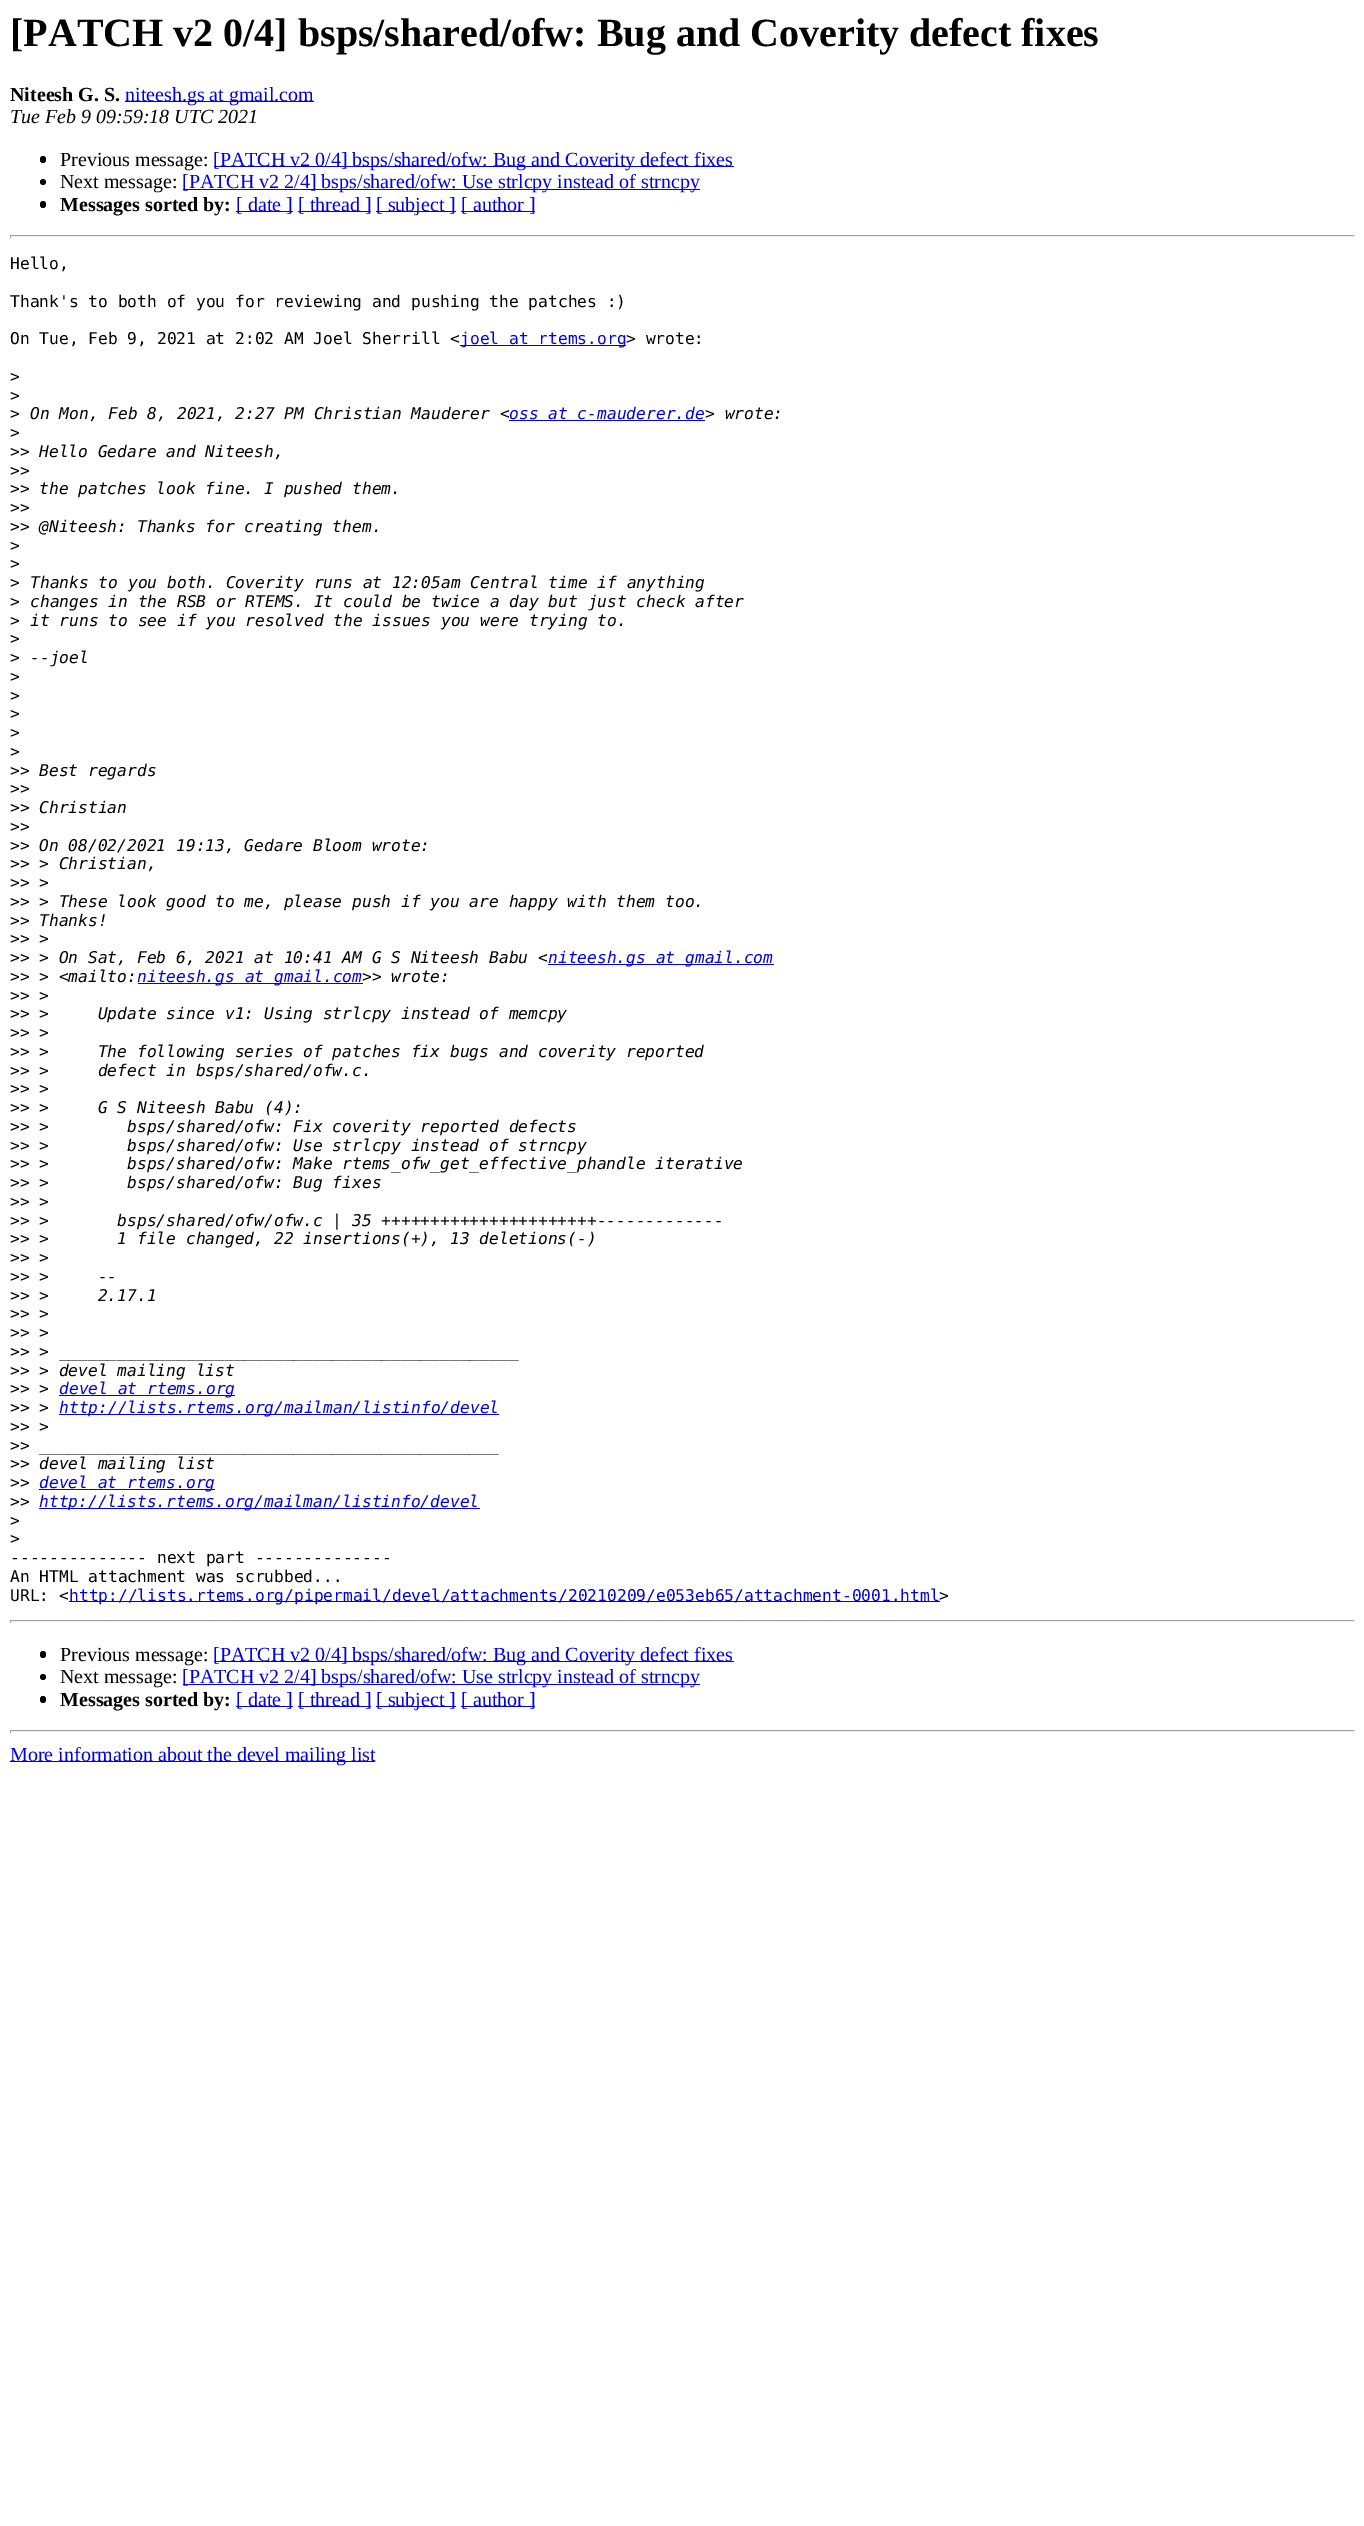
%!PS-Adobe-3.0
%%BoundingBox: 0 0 1364 2526
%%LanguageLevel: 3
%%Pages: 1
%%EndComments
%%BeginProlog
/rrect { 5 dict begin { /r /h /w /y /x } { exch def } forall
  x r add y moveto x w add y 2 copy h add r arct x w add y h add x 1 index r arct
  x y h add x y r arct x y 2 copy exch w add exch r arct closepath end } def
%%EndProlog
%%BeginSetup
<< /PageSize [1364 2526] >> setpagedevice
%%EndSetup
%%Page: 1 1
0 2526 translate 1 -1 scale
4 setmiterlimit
1 setgray
0 0 1364 2526 rectfill
0 0 0.933 setrgbcolor
125 101 189 1 rectfill
0 setgray
40 156 6 7 3 rrect fill
0 0 0.933 setrgbcolor
214 166 520 1 rectfill
0 setgray
newpath 43 182 3 0 360 arc closepath fill
0 0 0.933 setrgbcolor
183 189 517 1 rectfill
0 setgray
40 201 6 7 3 rrect fill
0 0 0.933 setrgbcolor
236 211 57 1 rectfill
298 211 73 1 rectfill
376 211 80 1 rectfill
461 211 74 1 rectfill
0.624 setgray
10 235 1345 1 rectfill
0.933 setgray
1354 235 1 3 rectfill
10 236 1345 1 rectfill
0.624 setgray
10 235 1 3 rectfill
0 0 0.933 setrgbcolor
460 345 166 1 rectfill
509 420 196 1 rectfill
548 964 226 1 rectfill
138 983 225 1 rectfill
59 1395 176 1 rectfill
59 1414 440 1 rectfill
39 1489 176 1 rectfill
39 1508 441 1 rectfill
69 1601 871 1 rectfill
0.624 setgray
10 1620 1345 1 rectfill
0.933 setgray
1354 1620 1 3 rectfill
10 1621 1345 1 rectfill
0.624 setgray
10 1620 1 3 rectfill
0 setgray
40 1651 6 7 3 rrect fill
0 0 0.933 setrgbcolor
214 1661 520 1 rectfill
0 setgray
newpath 43 1677 3 0 360 arc closepath fill
0 0 0.933 setrgbcolor
183 1684 517 1 rectfill
0 setgray
40 1696 6 7 3 rrect fill
0 0 0.933 setrgbcolor
236 1706 57 1 rectfill
298 1706 73 1 rectfill
376 1706 80 1 rectfill
461 1706 74 1 rectfill
0.624 setgray
10 1730 1345 1 rectfill
0.933 setgray
1354 1730 1 3 rectfill
10 1731 1345 1 rectfill
0.624 setgray
10 1730 1 3 rectfill
0 0 0.933 setrgbcolor
10 1761 365 1 rectfill
/LiberationSerif-Bold [40 0 0 -40 0 0] selectfont
0 setgray
10 46 moveto ([PATCH v2 0/4] bsps/shared/ofw: Bug and Coverity defect fixes) show
/LiberationSerif-Bold [20 0 0 -20 0 0] selectfont
10 101 moveto (Niteesh G. S.) show
/LiberationSerif-Regular [20 0 0 -20 0 0] selectfont
0 0 0.933 setrgbcolor
125 101 moveto (niteesh.gs at gmail.com) show
/LiberationSerif-Italic [20 0 0 -20 0 0] selectfont
0 setgray
10 123 moveto (Tue Feb 9 09:59:18 UTC 2021) show
/LiberationSerif-Regular [20 0 0 -20 0 0] selectfont
60 166 moveto (Previous message:) show
0 0 0.933 setrgbcolor
213 166 moveto ([PATCH v2 0/4] bsps/shared/ofw: Bug and Coverity defect fixes) show
0 setgray
60 188 moveto (Next message:) show
0 0 0.933 setrgbcolor
182 188 moveto ([PATCH v2 2/4] bsps/shared/ofw: Use strlcpy instead of strncpy) show
/LiberationSerif-Bold [20 0 0 -20 0 0] selectfont
0 setgray
60 211 moveto (Messages sorted by:) show
/LiberationSerif-Regular [20 0 0 -20 0 0] selectfont
0 0 0.933 setrgbcolor
236 211 moveto ([ date ]) show
298 211 moveto ([ thread ]) show
376 211 moveto ([ subject ]) show
461 211 moveto ([ author ]) show
/DejaVuSansMono-Regular [16.25 0 0 -16.25 0 0] selectfont
0 setgray
10 269 moveto (Hello,) show
10 307 moveto (Thank's to both of you for reviewing and pushing the patches :\)) show
10 344 moveto (On Tue, Feb 9, 2021 at 2:02 AM Joel Sherrill <) show
0 0 0.933 setrgbcolor
460 344 moveto (joel at rtems.org) show
0 setgray
626 344 moveto (> wrote:) show
10 382 moveto (>) show
10 401 moveto (>) show
10 419 moveto (>) show
/DejaVuSansMono-Italic [16.25 0 0 -16.25 0 0] selectfont
30 419 moveto (On Mon, Feb 8, 2021, 2:27 PM Christian Mauderer <) show
0 0 0.933 setrgbcolor
509 419 moveto (oss at c-mauderer.de) show
0 setgray
705 419 moveto (> wrote:) show
/DejaVuSansMono-Regular [16.25 0 0 -16.25 0 0] selectfont
10 438 moveto (>) show
10 457 moveto (>>) show
/DejaVuSansMono-Italic [16.25 0 0 -16.25 0 0] selectfont
39 457 moveto (Hello Gedare and Niteesh,) show
/DejaVuSansMono-Regular [16.25 0 0 -16.25 0 0] selectfont
10 476 moveto (>>) show
10 494 moveto (>>) show
/DejaVuSansMono-Italic [16.25 0 0 -16.25 0 0] selectfont
39 494 moveto (the patches look fine. I pushed them.) show
/DejaVuSansMono-Regular [16.25 0 0 -16.25 0 0] selectfont
10 513 moveto (>>) show
10 532 moveto (>>) show
/DejaVuSansMono-Italic [16.25 0 0 -16.25 0 0] selectfont
39 532 moveto (@Niteesh: Thanks for creating them.) show
/DejaVuSansMono-Regular [16.25 0 0 -16.25 0 0] selectfont
10 551 moveto (>) show
10 569 moveto (>) show
10 588 moveto (>) show
/DejaVuSansMono-Italic [16.25 0 0 -16.25 0 0] selectfont
30 588 moveto (Thanks to you both. Coverity runs at 12:05am Central time if anything) show
/DejaVuSansMono-Regular [16.25 0 0 -16.25 0 0] selectfont
10 607 moveto (>) show
/DejaVuSansMono-Italic [16.25 0 0 -16.25 0 0] selectfont
30 607 moveto (changes in the RSB or RTEMS. It could be twice a day but just check after) show
/DejaVuSansMono-Regular [16.25 0 0 -16.25 0 0] selectfont
10 626 moveto (>) show
/DejaVuSansMono-Italic [16.25 0 0 -16.25 0 0] selectfont
30 626 moveto (it runs to see if you resolved the issues you were trying to.) show
/DejaVuSansMono-Regular [16.25 0 0 -16.25 0 0] selectfont
10 644 moveto (>) show
10 663 moveto (>) show
/DejaVuSansMono-Italic [16.25 0 0 -16.25 0 0] selectfont
30 663 moveto (--joel) show
/DejaVuSansMono-Regular [16.25 0 0 -16.25 0 0] selectfont
10 682 moveto (>) show
10 701 moveto (>) show
10 719 moveto (>) show
10 738 moveto (>) show
10 757 moveto (>) show
10 776 moveto (>>) show
/DejaVuSansMono-Italic [16.25 0 0 -16.25 0 0] selectfont
39 776 moveto (Best regards) show
/DejaVuSansMono-Regular [16.25 0 0 -16.25 0 0] selectfont
10 794 moveto (>>) show
10 813 moveto (>>) show
/DejaVuSansMono-Italic [16.25 0 0 -16.25 0 0] selectfont
39 813 moveto (Christian) show
/DejaVuSansMono-Regular [16.25 0 0 -16.25 0 0] selectfont
10 832 moveto (>>) show
10 851 moveto (>>) show
/DejaVuSansMono-Italic [16.25 0 0 -16.25 0 0] selectfont
39 851 moveto (On 08/02/2021 19:13, Gedare Bloom wrote:) show
/DejaVuSansMono-Regular [16.25 0 0 -16.25 0 0] selectfont
10 869 moveto (>>) show
/DejaVuSansMono-Italic [16.25 0 0 -16.25 0 0] selectfont
39 869 moveto (> Christian,) show
/DejaVuSansMono-Regular [16.25 0 0 -16.25 0 0] selectfont
10 888 moveto (>>) show
/DejaVuSansMono-Italic [16.25 0 0 -16.25 0 0] selectfont
39 888 moveto (>) show
/DejaVuSansMono-Regular [16.25 0 0 -16.25 0 0] selectfont
10 907 moveto (>>) show
/DejaVuSansMono-Italic [16.25 0 0 -16.25 0 0] selectfont
39 907 moveto (> These look good to me, please push if you are happy with them too.) show
/DejaVuSansMono-Regular [16.25 0 0 -16.25 0 0] selectfont
10 926 moveto (>>) show
/DejaVuSansMono-Italic [16.25 0 0 -16.25 0 0] selectfont
39 926 moveto (Thanks!) show
/DejaVuSansMono-Regular [16.25 0 0 -16.25 0 0] selectfont
10 944 moveto (>>) show
/DejaVuSansMono-Italic [16.25 0 0 -16.25 0 0] selectfont
39 944 moveto (>) show
/DejaVuSansMono-Regular [16.25 0 0 -16.25 0 0] selectfont
10 963 moveto (>>) show
/DejaVuSansMono-Italic [16.25 0 0 -16.25 0 0] selectfont
39 963 moveto (> On Sat, Feb 6, 2021 at 10:41 AM G S Niteesh Babu <) show
0 0 0.933 setrgbcolor
548 963 moveto (niteesh.gs at gmail.com) show
/DejaVuSansMono-Regular [16.25 0 0 -16.25 0 0] selectfont
0 setgray
10 982 moveto (>>) show
/DejaVuSansMono-Italic [16.25 0 0 -16.25 0 0] selectfont
39 982 moveto (> <mailto:) show
0 0 0.933 setrgbcolor
137 982 moveto (niteesh.gs at gmail.com) show
0 setgray
362 982 moveto (>> wrote:) show
/DejaVuSansMono-Regular [16.25 0 0 -16.25 0 0] selectfont
10 1001 moveto (>>) show
/DejaVuSansMono-Italic [16.25 0 0 -16.25 0 0] selectfont
39 1001 moveto (>) show
/DejaVuSansMono-Regular [16.25 0 0 -16.25 0 0] selectfont
10 1019 moveto (>>) show
/DejaVuSansMono-Italic [16.25 0 0 -16.25 0 0] selectfont
39 1019 moveto (>     Update since v1: Using strlcpy instead of memcpy) show
/DejaVuSansMono-Regular [16.25 0 0 -16.25 0 0] selectfont
10 1038 moveto (>>) show
/DejaVuSansMono-Italic [16.25 0 0 -16.25 0 0] selectfont
39 1038 moveto (>) show
/DejaVuSansMono-Regular [16.25 0 0 -16.25 0 0] selectfont
10 1057 moveto (>>) show
/DejaVuSansMono-Italic [16.25 0 0 -16.25 0 0] selectfont
39 1057 moveto (>     The following series of patches fix bugs and coverity reported) show
/DejaVuSansMono-Regular [16.25 0 0 -16.25 0 0] selectfont
10 1076 moveto (>>) show
/DejaVuSansMono-Italic [16.25 0 0 -16.25 0 0] selectfont
39 1076 moveto (>     defect in bsps/shared/ofw.c.) show
/DejaVuSansMono-Regular [16.25 0 0 -16.25 0 0] selectfont
10 1094 moveto (>>) show
/DejaVuSansMono-Italic [16.25 0 0 -16.25 0 0] selectfont
39 1094 moveto (>) show
/DejaVuSansMono-Regular [16.25 0 0 -16.25 0 0] selectfont
10 1113 moveto (>>) show
/DejaVuSansMono-Italic [16.25 0 0 -16.25 0 0] selectfont
39 1113 moveto (>     G S Niteesh Babu \(4\):) show
/DejaVuSansMono-Regular [16.25 0 0 -16.25 0 0] selectfont
10 1132 moveto (>>) show
/DejaVuSansMono-Italic [16.25 0 0 -16.25 0 0] selectfont
39 1132 moveto (>        bsps/shared/ofw: Fix coverity reported defects) show
/DejaVuSansMono-Regular [16.25 0 0 -16.25 0 0] selectfont
10 1151 moveto (>>) show
/DejaVuSansMono-Italic [16.25 0 0 -16.25 0 0] selectfont
39 1151 moveto (>        bsps/shared/ofw: Use strlcpy instead of strncpy) show
/DejaVuSansMono-Regular [16.25 0 0 -16.25 0 0] selectfont
10 1169 moveto (>>) show
/DejaVuSansMono-Italic [16.25 0 0 -16.25 0 0] selectfont
39 1169 moveto (>        bsps/shared/ofw: Make rtems_ofw_get_effective_phandle iterative) show
/DejaVuSansMono-Regular [16.25 0 0 -16.25 0 0] selectfont
10 1188 moveto (>>) show
/DejaVuSansMono-Italic [16.25 0 0 -16.25 0 0] selectfont
39 1188 moveto (>        bsps/shared/ofw: Bug fixes) show
/DejaVuSansMono-Regular [16.25 0 0 -16.25 0 0] selectfont
10 1207 moveto (>>) show
/DejaVuSansMono-Italic [16.25 0 0 -16.25 0 0] selectfont
39 1207 moveto (>) show
/DejaVuSansMono-Regular [16.25 0 0 -16.25 0 0] selectfont
10 1226 moveto (>>) show
/DejaVuSansMono-Italic [16.25 0 0 -16.25 0 0] selectfont
39 1226 moveto (>       bsps/shared/ofw/ofw.c | 35 ++++++++++++++++++++++-------------) show
/DejaVuSansMono-Regular [16.25 0 0 -16.25 0 0] selectfont
10 1244 moveto (>>) show
/DejaVuSansMono-Italic [16.25 0 0 -16.25 0 0] selectfont
39 1244 moveto (>       1 file changed, 22 insertions\(+\), 13 deletions\(-\)) show
/DejaVuSansMono-Regular [16.25 0 0 -16.25 0 0] selectfont
10 1263 moveto (>>) show
/DejaVuSansMono-Italic [16.25 0 0 -16.25 0 0] selectfont
39 1263 moveto (>) show
/DejaVuSansMono-Regular [16.25 0 0 -16.25 0 0] selectfont
10 1282 moveto (>>) show
/DejaVuSansMono-Italic [16.25 0 0 -16.25 0 0] selectfont
39 1282 moveto (>     --) show
/DejaVuSansMono-Regular [16.25 0 0 -16.25 0 0] selectfont
10 1301 moveto (>>) show
/DejaVuSansMono-Italic [16.25 0 0 -16.25 0 0] selectfont
39 1301 moveto (>     2.17.1) show
/DejaVuSansMono-Regular [16.25 0 0 -16.25 0 0] selectfont
10 1319 moveto (>>) show
/DejaVuSansMono-Italic [16.25 0 0 -16.25 0 0] selectfont
39 1319 moveto (>) show
/DejaVuSansMono-Regular [16.25 0 0 -16.25 0 0] selectfont
10 1338 moveto (>>) show
/DejaVuSansMono-Italic [16.25 0 0 -16.25 0 0] selectfont
39 1338 moveto (>) show
/DejaVuSansMono-Regular [16.25 0 0 -16.25 0 0] selectfont
10 1357 moveto (>>) show
/DejaVuSansMono-Italic [16.25 0 0 -16.25 0 0] selectfont
39 1357 moveto (> _______________________________________________) show
/DejaVuSansMono-Regular [16.25 0 0 -16.25 0 0] selectfont
10 1376 moveto (>>) show
/DejaVuSansMono-Italic [16.25 0 0 -16.25 0 0] selectfont
39 1376 moveto (> devel mailing list) show
/DejaVuSansMono-Regular [16.25 0 0 -16.25 0 0] selectfont
10 1394 moveto (>>) show
/DejaVuSansMono-Italic [16.25 0 0 -16.25 0 0] selectfont
39 1394 moveto (>) show
0 0 0.933 setrgbcolor
59 1394 moveto (devel at rtems.org) show
/DejaVuSansMono-Regular [16.25 0 0 -16.25 0 0] selectfont
0 setgray
10 1413 moveto (>>) show
/DejaVuSansMono-Italic [16.25 0 0 -16.25 0 0] selectfont
39 1413 moveto (>) show
0 0 0.933 setrgbcolor
59 1413 moveto (http://lists.rtems.org/mailman/listinfo/devel) show
/DejaVuSansMono-Regular [16.25 0 0 -16.25 0 0] selectfont
0 setgray
10 1432 moveto (>>) show
/DejaVuSansMono-Italic [16.25 0 0 -16.25 0 0] selectfont
39 1432 moveto (>) show
/DejaVuSansMono-Regular [16.25 0 0 -16.25 0 0] selectfont
10 1451 moveto (>>) show
/DejaVuSansMono-Italic [16.25 0 0 -16.25 0 0] selectfont
39 1451 moveto (_______________________________________________) show
/DejaVuSansMono-Regular [16.25 0 0 -16.25 0 0] selectfont
10 1469 moveto (>>) show
/DejaVuSansMono-Italic [16.25 0 0 -16.25 0 0] selectfont
39 1469 moveto (devel mailing list) show
/DejaVuSansMono-Regular [16.25 0 0 -16.25 0 0] selectfont
10 1488 moveto (>>) show
/DejaVuSansMono-Italic [16.25 0 0 -16.25 0 0] selectfont
0 0 0.933 setrgbcolor
39 1488 moveto (devel at rtems.org) show
/DejaVuSansMono-Regular [16.25 0 0 -16.25 0 0] selectfont
0 setgray
10 1507 moveto (>>) show
/DejaVuSansMono-Italic [16.25 0 0 -16.25 0 0] selectfont
0 0 0.933 setrgbcolor
39 1507 moveto (http://lists.rtems.org/mailman/listinfo/devel) show
/DejaVuSansMono-Regular [16.25 0 0 -16.25 0 0] selectfont
0 setgray
10 1526 moveto (>) show
10 1544 moveto (>) show
10 1563 moveto (-------------- next part --------------) show
10 1582 moveto (An HTML attachment was scrubbed...) show
10 1601 moveto (URL: <) show
0 0 0.933 setrgbcolor
69 1601 moveto (http://lists.rtems.org/pipermail/devel/attachments/20210209/e053eb65/attachment-0001.html) show
0 setgray
939 1601 moveto (>) show
/LiberationSerif-Regular [20 0 0 -20 0 0] selectfont
60 1661 moveto (Previous message:) show
0 0 0.933 setrgbcolor
213 1661 moveto ([PATCH v2 0/4] bsps/shared/ofw: Bug and Coverity defect fixes) show
0 setgray
60 1683 moveto (Next message:) show
0 0 0.933 setrgbcolor
182 1683 moveto ([PATCH v2 2/4] bsps/shared/ofw: Use strlcpy instead of strncpy) show
/LiberationSerif-Bold [20 0 0 -20 0 0] selectfont
0 setgray
60 1706 moveto (Messages sorted by:) show
/LiberationSerif-Regular [20 0 0 -20 0 0] selectfont
0 0 0.933 setrgbcolor
236 1706 moveto ([ date ]) show
298 1706 moveto ([ thread ]) show
376 1706 moveto ([ subject ]) show
461 1706 moveto ([ author ]) show
10 1761 moveto (More information about the devel mailing list) show
showpage
%%EOF
